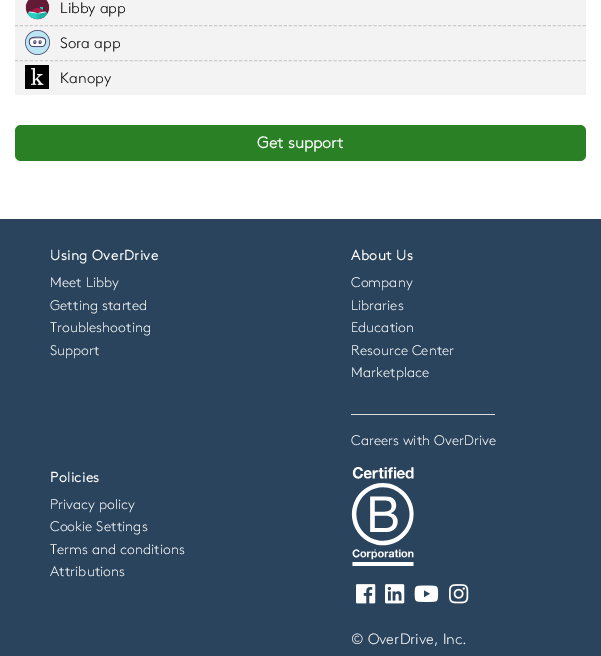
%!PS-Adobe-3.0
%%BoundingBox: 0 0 601 656
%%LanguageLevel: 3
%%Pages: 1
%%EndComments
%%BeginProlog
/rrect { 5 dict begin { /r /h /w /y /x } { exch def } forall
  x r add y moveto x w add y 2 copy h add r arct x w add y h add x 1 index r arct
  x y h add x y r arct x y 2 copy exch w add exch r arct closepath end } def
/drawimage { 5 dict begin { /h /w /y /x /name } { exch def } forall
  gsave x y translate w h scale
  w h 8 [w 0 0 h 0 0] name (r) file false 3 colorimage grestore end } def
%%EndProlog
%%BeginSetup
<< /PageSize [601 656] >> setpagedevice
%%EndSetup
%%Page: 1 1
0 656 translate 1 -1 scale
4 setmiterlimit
1 setgray
0 0 601 656 rectfill
0.953 setgray
15 0 571 95 rectfill
(images/1.raw) 25 0 25 20 drawimage
0.8 setgray
[3 1.98] 0 setdash
newpath 15 25.5 moveto 586 25.5 lineto stroke
(images/2.raw) 25 30 25 25 drawimage
newpath 15 60.5 moveto 586 60.5 lineto stroke
(images/3.raw) 25 65 24 24 drawimage
0.161 0.502 0.145 setrgbcolor
15 125 571 36 6 rrect fill
0.169 0.267 0.365 setrgbcolor
0 219 601 437 rectfill
0.867 setgray
351 414 144 1 rectfill
(images/4.raw) 351 467 63 99 drawimage
(images/5.raw) 356 584 20 20 drawimage
(images/6.raw) 385 584 20 20 drawimage
(images/7.raw) 414 585 25 17 drawimage
(images/8.raw) 449 584 20 20 drawimage
/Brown-Light [15 0 0 -15 0 0] selectfont
0 setgray
60 13 moveto (Libby app) show
60 48 moveto (Sora app) show
60 83 moveto (Kanopy) show
/Brown-Bold [16 0 0 -16 0 0] selectfont
1 setgray
257 148 moveto (Get support) show
/Brown-Bold [14 0 0 -14 0 0] selectfont
50 260 moveto 0.5 0 (Using OverDrive) ashow
/Brown-Light [14 0 0 -14 0 0] selectfont
50 287 moveto (Meet Libby) show
50 310 moveto (Getting started) show
50 332 moveto (Troubleshooting) show
50 355 moveto (Support) show
/Brown-Bold [14 0 0 -14 0 0] selectfont
351 260 moveto 0.5 0 (About Us) ashow
/Brown-Light [14 0 0 -14 0 0] selectfont
351 287 moveto (Company) show
351 310 moveto (Libraries) show
351 332 moveto (Education) show
351 355 moveto (Resource Center) show
351 377 moveto (Marketplace) show
351 445 moveto (Careers with OverDrive) show
/Brown-Bold [14 0 0 -14 0 0] selectfont
50 482 moveto 0.5 0 (Policies) ashow
/Brown-Light [14 0 0 -14 0 0] selectfont
50 509 moveto (Privacy policy) show
50 531 moveto (Cookie Settings) show
50 554 moveto (Terms and conditions) show
50 576 moveto (Attributions) show
/Brown-Light [15 0 0 -15 0 0] selectfont
351 644 moveto (© OverDrive, Inc.) show
showpage
%%EOF
